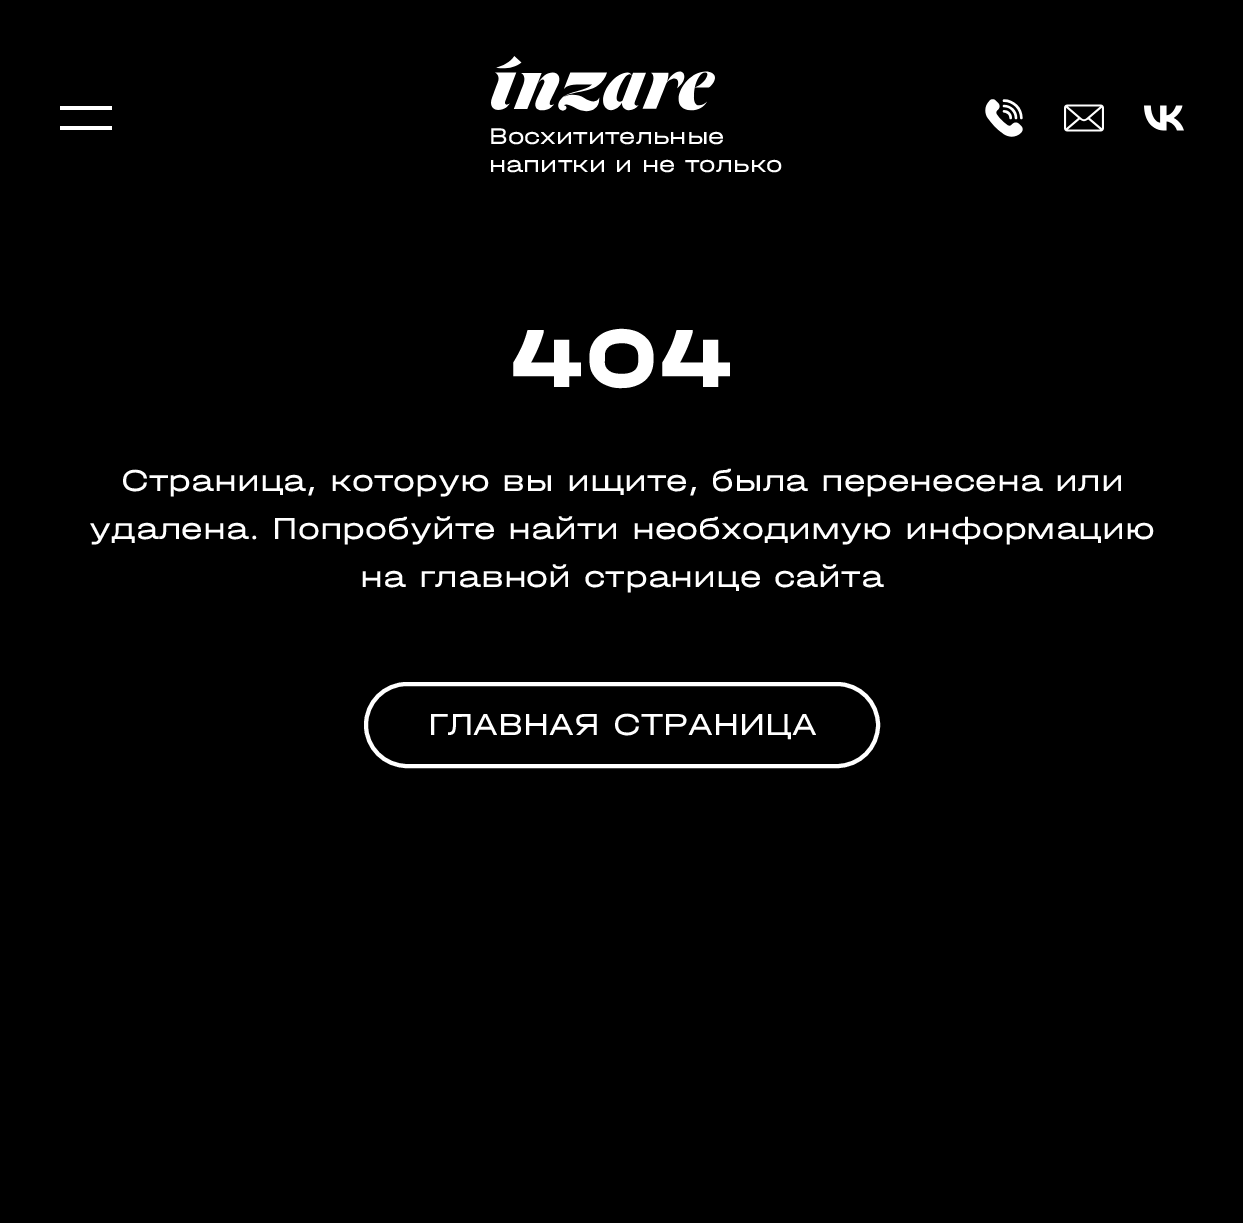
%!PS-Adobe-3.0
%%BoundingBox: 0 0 1243 1223
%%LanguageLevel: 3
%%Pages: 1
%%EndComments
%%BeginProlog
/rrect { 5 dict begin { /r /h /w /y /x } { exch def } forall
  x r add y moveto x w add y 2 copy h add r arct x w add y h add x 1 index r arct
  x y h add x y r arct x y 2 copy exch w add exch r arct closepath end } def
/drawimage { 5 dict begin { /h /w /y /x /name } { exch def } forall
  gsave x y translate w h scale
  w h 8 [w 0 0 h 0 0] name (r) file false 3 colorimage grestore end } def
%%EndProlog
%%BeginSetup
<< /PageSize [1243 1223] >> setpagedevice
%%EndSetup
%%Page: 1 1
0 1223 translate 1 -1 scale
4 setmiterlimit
0 setgray
0 0 1243 1223 rectfill
1 setgray
60 106 52 4 rectfill
60 126 52 4 rectfill
(images/1.raw) 985 99 38 38 drawimage
(images/2.raw) 1064 104 40 28 drawimage
(images/3.raw) 1144 105 40 26 drawimage
(images/4.raw) 491 56 224 56 drawimage
4 setlinewidth
366 684 512 82 41 rrect stroke
/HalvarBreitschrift-Regular [24 0 0 -24 0 0] selectfont
489 144 moveto (Восхитительные) show
489 172 moveto (напитки и не только) show
/HalvarBreitschrift-ExtraBold [87 0 0 -87 0 0] selectfont
508 387 moveto (404) show
/HalvarBreitschrift-Regular [32 0 0 -32 0 0] selectfont
121 491 moveto (Страница, которую вы ищите, была перенесена или) show
89 539 moveto (удалена. Попробуйте найти необходимую информацию) show
360 587 moveto (на главной странице сайта) show
428 735 moveto (ГЛАВНАЯ СТРАНИЦА) show
showpage
%%EOF
